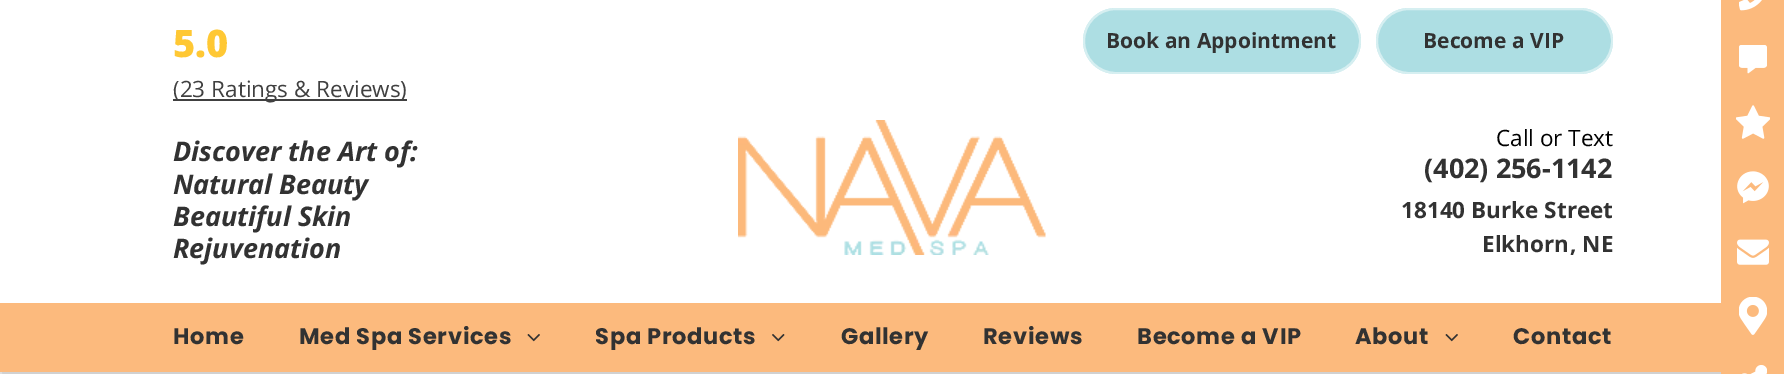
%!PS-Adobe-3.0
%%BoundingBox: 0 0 1784 374
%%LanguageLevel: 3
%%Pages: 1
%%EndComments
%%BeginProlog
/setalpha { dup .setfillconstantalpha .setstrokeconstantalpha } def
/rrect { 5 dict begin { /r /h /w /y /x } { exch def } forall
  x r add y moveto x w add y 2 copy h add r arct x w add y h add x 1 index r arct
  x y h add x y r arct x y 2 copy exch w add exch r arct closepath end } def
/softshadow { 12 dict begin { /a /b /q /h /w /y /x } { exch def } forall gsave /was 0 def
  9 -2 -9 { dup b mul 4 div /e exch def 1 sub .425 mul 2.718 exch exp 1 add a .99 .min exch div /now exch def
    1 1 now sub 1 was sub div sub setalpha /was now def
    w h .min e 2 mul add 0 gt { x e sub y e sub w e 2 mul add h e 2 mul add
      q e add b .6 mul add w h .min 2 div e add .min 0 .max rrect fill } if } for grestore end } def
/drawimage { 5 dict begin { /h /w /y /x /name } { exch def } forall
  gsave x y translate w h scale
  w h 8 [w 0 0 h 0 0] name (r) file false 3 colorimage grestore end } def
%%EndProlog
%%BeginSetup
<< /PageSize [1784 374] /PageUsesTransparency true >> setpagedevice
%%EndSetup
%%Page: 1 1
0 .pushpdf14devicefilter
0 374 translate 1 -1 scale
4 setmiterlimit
1 setgray
0 0 1784 374 rectfill
gsave
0 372 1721 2 rectclip
0 setgray
0 5 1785 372 0 8 0.25 softshadow
grestore
0.251 setgray
173 99 234 2 rectfill
0.678 0.871 0.89 setrgbcolor
1083 8 278 66 33 rrect fill
0.5 setalpha
1 setgray
2 setlinewidth
1084 9 276 64 32 rrect stroke
1 setalpha
0.678 0.871 0.89 setrgbcolor
1376 8 237 66 33 rrect fill
0.5 setalpha
1 setgray
1377 9 235 64 32 rrect stroke
1 setalpha
(images/1.raw) 738 120 308 135 drawimage
0.988 0.729 0.49 setrgbcolor
0 303 1721 69 rectfill
(images/2.raw) 527 334 13 8 drawimage
(images/3.raw) 772 334 13 8 drawimage
(images/2.raw) 1445 334 13 8 drawimage
1721 0 63 374 rectfill
(images/4.raw) 1739 0 23 11 drawimage
(images/5.raw) 1739 45 28 29 drawimage
(images/6.raw) 1736 105 34 34 drawimage
(images/7.raw) 1737 171 32 33 drawimage
(images/8.raw) 1737 239 32 26 drawimage
(images/9.raw) 1739 297 28 38 drawimage
(images/10.raw) 1742 365 25 9 drawimage
/OpenSans-ExtraBold [38 0 0 -38 0 0] selectfont
1 0.784 0.204 setrgbcolor
173 57 moveto (5.0) show
/OpenSans-Regular [22.5 0 0 -22.5 0 0] selectfont
0.251 setgray
173 97 moveto (\(23 Ratings & Reviews\)) show
/OpenSans-Bold [21 0 0 -21 0 0] selectfont
0.196 setgray
1106 48 moveto (Book an Appointment) show
1423 48 moveto (Become a VIP) show
/OpenSans-BoldItalic [27 0 0 -27 0 0] selectfont
173 161 moveto (Discover the Art of:) show
173 194 moveto (Natural Beauty) show
173 226 moveto (Beautiful Skin) show
173 258 moveto (Rejuvenation) show
/OpenSans-Regular [22.5 0 0 -22.5 0 0] selectfont
0 setgray
1496 146 moveto (Call or Text) show
/OpenSans-Bold [27 0 0 -27 0 0] selectfont
0.196 setgray
1424 178 moveto (\(402\) 256-1142) show
/OpenSans-Bold [22.5 0 0 -22.5 0 0] selectfont
1401 218 moveto (18140 Burke Street) show
1482 252 moveto (Elkhorn) show
1570 252 moveto (, NE) show
/Poppins-Bold [22.5 0 0 -22.5 0 0] selectfont
173 344 moveto 0.7 0 (Home) ashow
299 344 moveto 0.7 0 (Med Spa Services) ashow
595 344 moveto 0.7 0 (Spa Products) ashow
841 344 moveto 0.7 0 (Gallery) ashow
983 344 moveto 0.7 0 (Reviews) ashow
1137 344 moveto 0.7 0 (Become a VIP) ashow
1355 344 moveto 0.7 0 (About) ashow
1513 344 moveto 0.7 0 (Contact) ashow
.poppdf14devicefilter showpage
%%EOF
